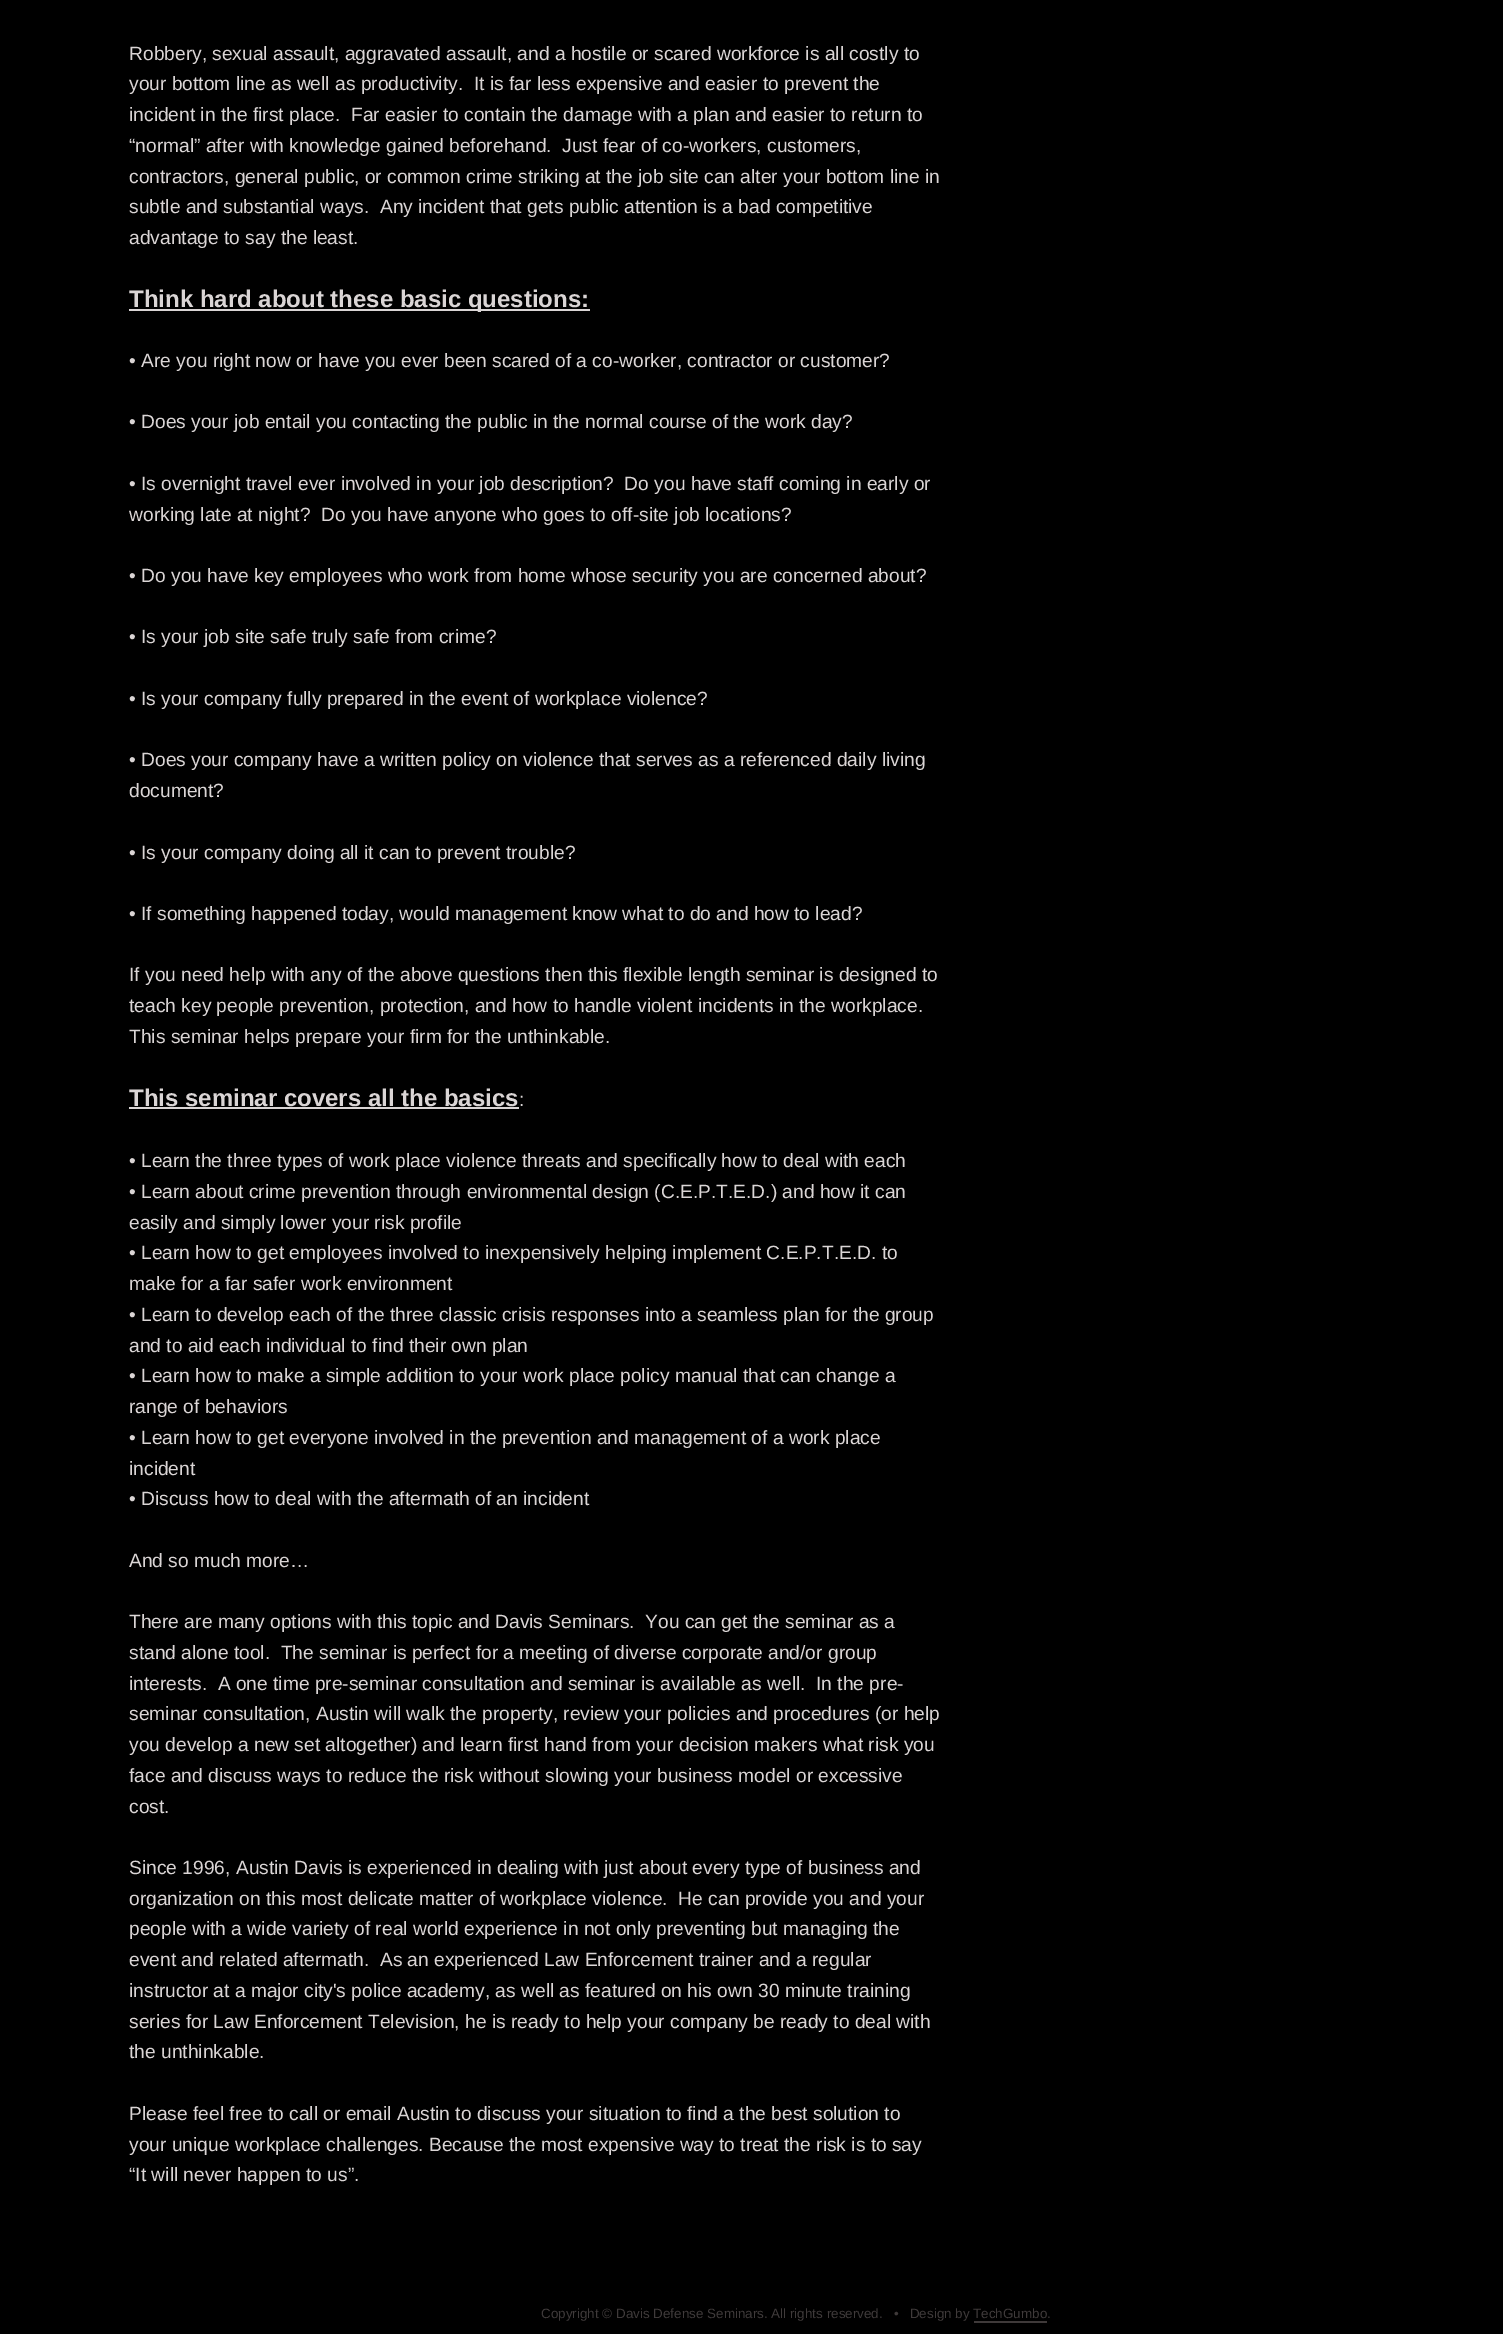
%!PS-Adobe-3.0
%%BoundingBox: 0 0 1503 2334
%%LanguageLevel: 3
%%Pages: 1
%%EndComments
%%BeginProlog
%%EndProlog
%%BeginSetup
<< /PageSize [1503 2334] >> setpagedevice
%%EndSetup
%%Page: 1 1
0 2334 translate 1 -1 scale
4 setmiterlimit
0 setgray
0 0 1503 2334 rectfill
0.855 0.835 0.835 setrgbcolor
129 309 461 2 rectfill
129 1107 390 2 rectfill
0.247 0.227 0.227 setrgbcolor
974 2321 73 2 rectfill
/LiberationSans-Regular [19.2 0 0 -19.2 0 0] selectfont
0.855 0.835 0.835 setrgbcolor
129 60 moveto (Robbery, sexual assault, aggravated assault, and a hostile or scared workforce is all costly to) show
129 90 moveto (your bottom line as well as productivity.  It is far less expensive and easier to prevent the) show
129 121 moveto (incident in the first place.  Far easier to contain the damage with a plan and easier to return to) show
129 152 moveto (“normal” after with knowledge gained beforehand.  Just fear of co-workers, customers,) show
129 183 moveto (contractors, general public, or common crime striking at the job site can alter your bottom line in) show
129 213 moveto (subtle and substantial ways.  Any incident that gets public attention is a bad competitive) show
129 244 moveto (advantage to say the least.) show
/LiberationSans-Bold [24 0 0 -24 0 0] selectfont
129 307 moveto (Think hard about these basic questions:) show
/LiberationSans-Regular [19.2 0 0 -19.2 0 0] selectfont
129 367 moveto (• Are you right now or have you ever been scared of a co-worker, contractor or customer?) show
129 428 moveto (• Does your job entail you contacting the public in the normal course of the work day?) show
129 490 moveto (• Is overnight travel ever involved in your job description?  Do you have staff coming in early or) show
129 521 moveto (working late at night?  Do you have anyone who goes to off-site job locations?) show
129 582 moveto (• Do you have key employees who work from home whose security you are concerned about?) show
129 643 moveto (• Is your job site safe truly safe from crime?) show
129 705 moveto (• Is your company fully prepared in the event of workplace violence?) show
129 766 moveto (• Does your company have a written policy on violence that serves as a referenced daily living) show
129 797 moveto (document?) show
129 859 moveto (• Is your company doing all it can to prevent trouble?) show
129 920 moveto (• If something happened today, would management know what to do and how to lead?) show
129 981 moveto (If you need help with any of the above questions then this flexible length seminar is designed to) show
129 1012 moveto (teach key people prevention, protection, and how to handle violent incidents in the workplace.) show
129 1043 moveto (This seminar helps prepare your firm for the unthinkable.) show
/LiberationSans-Bold [24 0 0 -24 0 0] selectfont
129 1106 moveto (This seminar covers all the basics) show
/LiberationSans-Regular [19.2 0 0 -19.2 0 0] selectfont
519 1106 moveto (:) show
129 1167 moveto (• Learn the three types of work place violence threats and specifically how to deal with each) show
129 1198 moveto (• Learn about crime prevention through environmental design \(C.E.P.T.E.D.\) and how it can) show
129 1229 moveto (easily and simply lower your risk profile) show
129 1259 moveto (• Learn how to get employees involved to inexpensively helping implement C.E.P.T.E.D. to) show
129 1290 moveto (make for a far safer work environment) show
129 1321 moveto (• Learn to develop each of the three classic crisis responses into a seamless plan for the group) show
129 1352 moveto (and to aid each individual to find their own plan) show
129 1382 moveto (• Learn how to make a simple addition to your work place policy manual that can change a) show
129 1413 moveto (range of behaviors) show
129 1444 moveto (• Learn how to get everyone involved in the prevention and management of a work place) show
129 1475 moveto (incident) show
129 1505 moveto (• Discuss how to deal with the aftermath of an incident) show
129 1567 moveto (And so much more…) show
129 1628 moveto (There are many options with this topic and Davis Seminars.  You can get the seminar as a) show
129 1659 moveto (stand alone tool.  The seminar is perfect for a meeting of diverse corporate and/or group) show
129 1690 moveto (interests.  A one time pre-seminar consultation and seminar is available as well.  In the pre-) show
129 1720 moveto (seminar consultation, Austin will walk the property, review your policies and procedures \(or help) show
129 1751 moveto (you develop a new set altogether\) and learn first hand from your decision makers what risk you) show
129 1782 moveto (face and discuss ways to reduce the risk without slowing your business model or excessive) show
129 1813 moveto (cost.) show
129 1874 moveto (Since 1996, Austin Davis is experienced in dealing with just about every type of business and) show
129 1905 moveto (organization on this most delicate matter of workplace violence.  He can provide you and your) show
129 1935 moveto (people with a wide variety of real world experience in not only preventing but managing the) show
129 1966 moveto (event and related aftermath.  As an experienced Law Enforcement trainer and a regular) show
129 1997 moveto (instructor at a major city's police academy, as well as featured on his own 30 minute training) show
129 2028 moveto (series for Law Enforcement Television, he is ready to help your company be ready to deal with) show
129 2058 moveto (the unthinkable.) show
129 2120 moveto (Please feel free to call or email Austin to discuss your situation to find a the best solution to) show
129 2151 moveto (your unique workplace challenges. Because the most expensive way to treat the risk is to say) show
129 2181 moveto (“It will never happen to us”.) show
/LiberationSans-Regular [13.45 0 0 -13.45 0 0] selectfont
0.247 0.227 0.227 setrgbcolor
541 2318 moveto (Copyright © Davis Defense Seminars. All rights reserved.   •   Design by) show
973 2318 moveto (TechGumbo.) show
showpage
%%EOF
